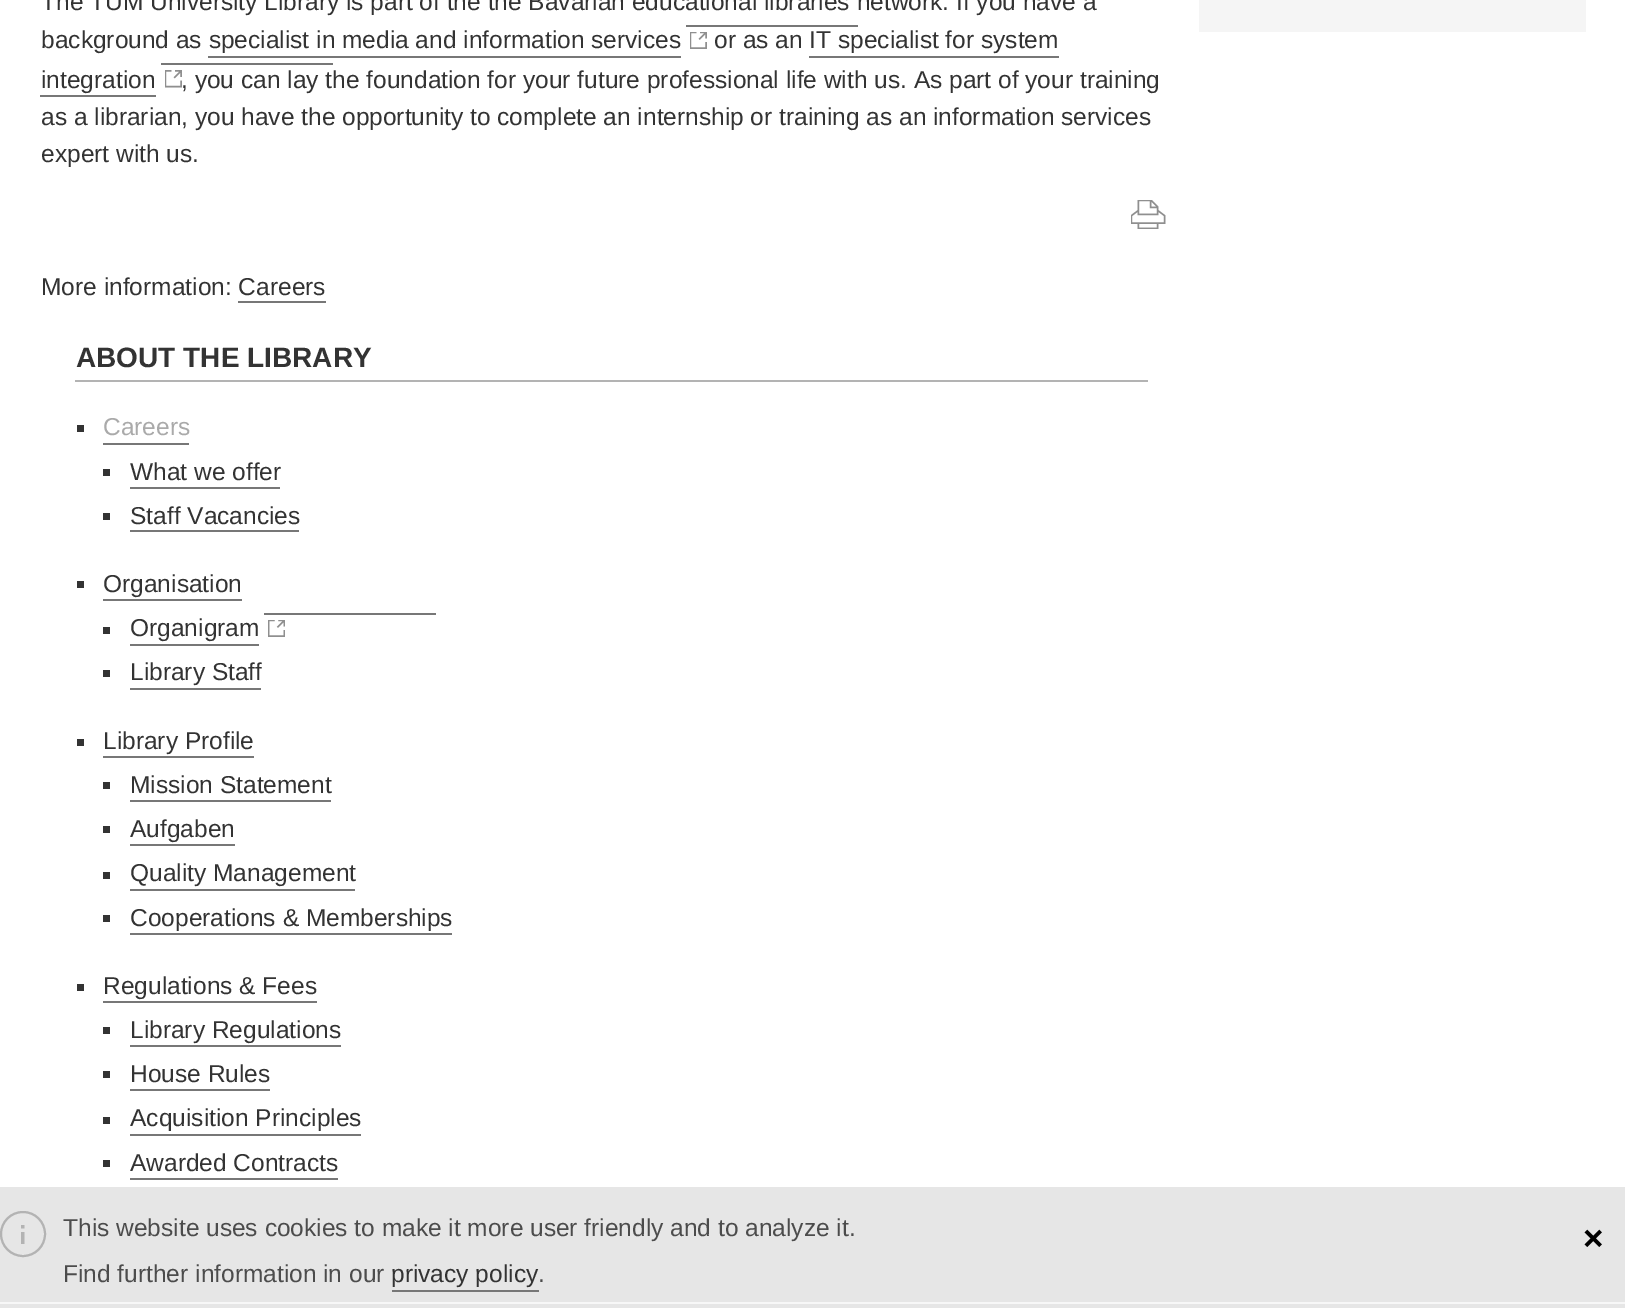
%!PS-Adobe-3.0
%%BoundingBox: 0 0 1625 1308
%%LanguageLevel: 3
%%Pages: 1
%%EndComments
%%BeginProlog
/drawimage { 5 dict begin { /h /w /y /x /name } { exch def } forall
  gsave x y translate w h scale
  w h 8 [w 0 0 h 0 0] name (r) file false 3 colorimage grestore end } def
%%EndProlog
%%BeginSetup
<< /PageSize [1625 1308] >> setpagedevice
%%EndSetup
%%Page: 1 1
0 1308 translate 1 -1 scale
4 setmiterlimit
1 setgray
0 0 1625 1308 rectfill
0.467 setgray
686 25 172 2 rectfill
(images/1.raw) 690 32 17 17 drawimage
208 56 473 2 rectfill
809 56 250 2 rectfill
40 95 116 2 rectfill
161 63 172 2 rectfill
(images/2.raw) 165 70 17 18 drawimage
(images/3.raw) 1131 200 35 29 drawimage
238 301 88 2 rectfill
0.702 setgray
75 380 1073 2 rectfill
0.2 setgray
77 425 7 7 rectfill
0.467 setgray
103 443 86 2 rectfill
0.2 setgray
103 469 7 7 rectfill
0.467 setgray
130 487 150 2 rectfill
0.2 setgray
103 513 7 7 rectfill
0.467 setgray
130 530 169 2 rectfill
0.2 setgray
77 581 7 7 rectfill
0.467 setgray
103 599 139 2 rectfill
0.2 setgray
103 627 7 7 rectfill
0.467 setgray
130 644 129 2 rectfill
264 613 172 2 rectfill
(images/4.raw) 268 620 17 17 drawimage
0.2 setgray
103 670 7 7 rectfill
0.467 setgray
130 688 131 2 rectfill
0.2 setgray
77 739 7 7 rectfill
0.467 setgray
103 756 151 2 rectfill
0.2 setgray
103 782 7 7 rectfill
0.467 setgray
130 800 201 2 rectfill
0.2 setgray
103 826 7 7 rectfill
0.467 setgray
130 844 105 2 rectfill
0.2 setgray
103 872 7 7 rectfill
0.467 setgray
130 889 225 2 rectfill
0.2 setgray
103 915 7 7 rectfill
0.467 setgray
130 933 322 2 rectfill
0.2 setgray
77 984 7 7 rectfill
0.467 setgray
103 1001 214 2 rectfill
0.2 setgray
103 1027 7 7 rectfill
0.467 setgray
130 1045 211 2 rectfill
0.2 setgray
103 1071 7 7 rectfill
0.467 setgray
130 1089 140 2 rectfill
0.2 setgray
103 1117 7 7 rectfill
0.467 setgray
130 1134 231 2 rectfill
0.2 setgray
103 1160 7 7 rectfill
0.467 setgray
130 1178 208 2 rectfill
0.961 setgray
1199 0 387 32 rectfill
0.902 setgray
0 1187 1625 121 rectfill
0.969 setgray
0 1302 1625 2 rectfill
(images/5.raw) 21 1225 4 19 drawimage
0.702 setgray
2 setlinewidth
newpath 23 1234 22 0 360 arc closepath stroke
0.467 setgray
392 1290 147 2 rectfill
/LiberationSans-Regular [24.5 0 0 -24.5 0 0] selectfont
0.2 setgray
41 10 moveto (The TUM University Library is part of the the Bavarian educational libraries network. If you have a) show
41 48 moveto (background as specialist in media and information services) show
714 48 moveto (or as an IT specialist for system) show
41 88 moveto (integration) show
181 88 moveto (, you can lay the foundation for your future professional life with us. As part of your training) show
41 125 moveto (as a librarian, you have the opportunity to complete an internship or training as an information services) show
41 162 moveto (expert with us.) show
41 295 moveto (More information: Careers) show
/LiberationSans-Bold [28 0 0 -28 0 0] selectfont
76 367 moveto (ABOUT THE LIBRARY) show
/LiberationSans-Regular [24.5 0 0 -24.5 0 0] selectfont
0.667 setgray
103 435 moveto (Careers) show
0.2 setgray
130 480 moveto (What we offer) show
130 524 moveto (Staff Vacancies) show
103 592 moveto (Organisation) show
130 636 moveto (Organigram) show
130 680 moveto (Library Staff) show
103 749 moveto (Library Profile) show
130 793 moveto (Mission Statement) show
130 837 moveto (Aufgaben) show
130 881 moveto (Quality Management) show
130 926 moveto (Cooperations & Memberships) show
103 994 moveto (Regulations & Fees) show
130 1038 moveto (Library Regulations) show
130 1082 moveto (House Rules) show
130 1126 moveto (Acquisition Principles) show
130 1171 moveto (Awarded Contracts) show
0.298 setgray
63 1236 moveto (This website uses cookies to make it more user friendly and to analyze it.) show
63 1282 moveto (Find further information in our) show
0.2 setgray
391 1282 moveto (privacy policy) show
0.298 setgray
538 1282 moveto (.) show
/LiberationSans-Bold [35 0 0 -35 0 0] selectfont
0 setgray
1583 1250 moveto (×) show
showpage
%%EOF
